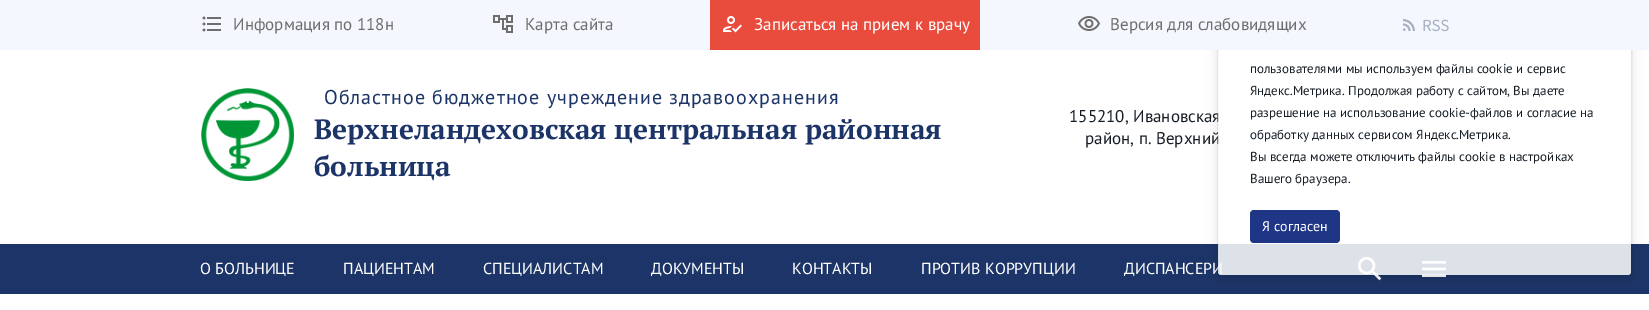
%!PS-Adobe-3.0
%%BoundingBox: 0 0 1649 310
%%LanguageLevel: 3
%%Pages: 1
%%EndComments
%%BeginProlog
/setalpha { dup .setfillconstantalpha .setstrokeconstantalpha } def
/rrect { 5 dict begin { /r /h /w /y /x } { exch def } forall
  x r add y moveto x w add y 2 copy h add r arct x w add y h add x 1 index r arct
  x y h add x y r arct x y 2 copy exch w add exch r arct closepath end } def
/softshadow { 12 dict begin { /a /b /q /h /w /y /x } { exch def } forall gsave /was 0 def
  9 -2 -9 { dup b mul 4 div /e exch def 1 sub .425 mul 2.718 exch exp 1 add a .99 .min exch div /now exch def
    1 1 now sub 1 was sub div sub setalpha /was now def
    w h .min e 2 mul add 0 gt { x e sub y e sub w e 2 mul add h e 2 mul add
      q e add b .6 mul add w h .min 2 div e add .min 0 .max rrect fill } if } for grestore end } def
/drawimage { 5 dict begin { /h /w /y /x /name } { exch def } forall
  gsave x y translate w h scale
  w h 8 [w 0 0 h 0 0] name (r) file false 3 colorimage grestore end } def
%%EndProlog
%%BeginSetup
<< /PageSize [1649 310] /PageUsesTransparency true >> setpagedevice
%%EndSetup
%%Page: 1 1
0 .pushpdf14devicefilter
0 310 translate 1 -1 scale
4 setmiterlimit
1 setgray
0 0 1649 310 rectfill
(images/7.raw) 201 88 93 93 drawimage
0.11 0.204 0.404 setrgbcolor
0 244 1649 50 rectfill
(images/8.raw) 1358 257 24 24 drawimage
(images/9.raw) 1422 261 24 16 drawimage
gsave
newpath 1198 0 moveto 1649 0 lineto 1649 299 lineto 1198 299 lineto closepath 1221 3 moveto 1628 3 lineto 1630 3 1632 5 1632 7 curveto 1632 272 lineto 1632 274 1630 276 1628 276 curveto 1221 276 lineto 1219 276 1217 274 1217 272 curveto 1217 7 lineto 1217 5 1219 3 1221 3 curveto closepath eoclip newpath
0 setgray
1217 7 415 273 4 6 0.1 softshadow
grestore
/PTSans-Regular [20 0 0 -20 0 0] selectfont
324 104 moveto 1 0 (Областное бюджетное учреждение здравоохранения) ashow
/PTSerif-Bold [28 0 0 -28 0 0] selectfont
314 139 moveto (Верхнеландеховская центральная районная) show
314 176 moveto (больница) show
/PTSans-Regular [17 0 0 -17 0 0] selectfont
0.086 0.118 0.149 setrgbcolor
1069 122 moveto (155210, Ивановская) show
1085 144 moveto (район, п. Верхний) show
/PTSans-Regular [16 0 0 -16 0 0] selectfont
1 setgray
200 274 moveto (О БОЛЬНИЦЕ) show
343 274 moveto (ПАЦИЕНТАМ) show
483 274 moveto (СПЕЦИАЛИСТАМ) show
651 274 moveto (ДОКУМЕНТЫ) show
792 274 moveto (КОНТАКТЫ) show
921 274 moveto (ПРОТИВ КОРРУПЦИИ) show
gsave
1124 258 148 21 rectclip
1124 274 moveto (ДИСПАНСЕРИ) show
grestore
0.85 setalpha
1218 4 413 271 3 rrect fill
0.1 setalpha
0 setgray
1217.5 3.5 414 272 3.5 rrect stroke
1 setalpha
0.957 0.969 0.992 setrgbcolor
0 0 1649 50 rectfill
(images/6.raw) 1423 19 26 13 drawimage
(images/5.raw) 1403 19 12 12 drawimage
(images/4.raw) 1078 16 22 15 drawimage
/PTSans-Regular [17 0 0 -17 0 0] selectfont
0.439 0.427 0.427 setrgbcolor
1110 30 moveto (Версия для слабовидящих) show
0.914 0.294 0.239 setrgbcolor
710 0 270 50 rectfill
(images/3.raw) 723 16 19 17 drawimage
1 setgray
754 30 moveto (Записаться на прием к врачу) show
(images/2.raw) 493 15 20 18 drawimage
0.439 0.427 0.427 setrgbcolor
525 30 moveto (Карта сайта) show
(images/1.raw) 202 16 19 16 drawimage
233 30 moveto (Информация по 118н) show
/PTSans-Regular [13 0 0 -13 0 0] selectfont
0.086 0.118 0.149 setrgbcolor
1250 73 moveto (пользователями мы используем файлы cookie и сервис) show
1250 95 moveto (Яндекс.Метрика. Продолжая работу с сайтом, Вы даете) show
1250 117 moveto (разрешение на использование cookie-файлов и согласие на) show
1250 139 moveto (обработку данных сервисом Яндекс.Метрика.) show
1250 161 moveto (Вы всегда можете отключить файлы cookie в настройках) show
1250 183 moveto (Вашего браузера.) show
0.118 0.212 0.522 setrgbcolor
1250 210 90 33 4 rrect fill
/PTSans-Regular [14 0 0 -14 0 0] selectfont
1 setgray
1262 231 moveto (Я согласен) show
.poppdf14devicefilter showpage
%%EOF
